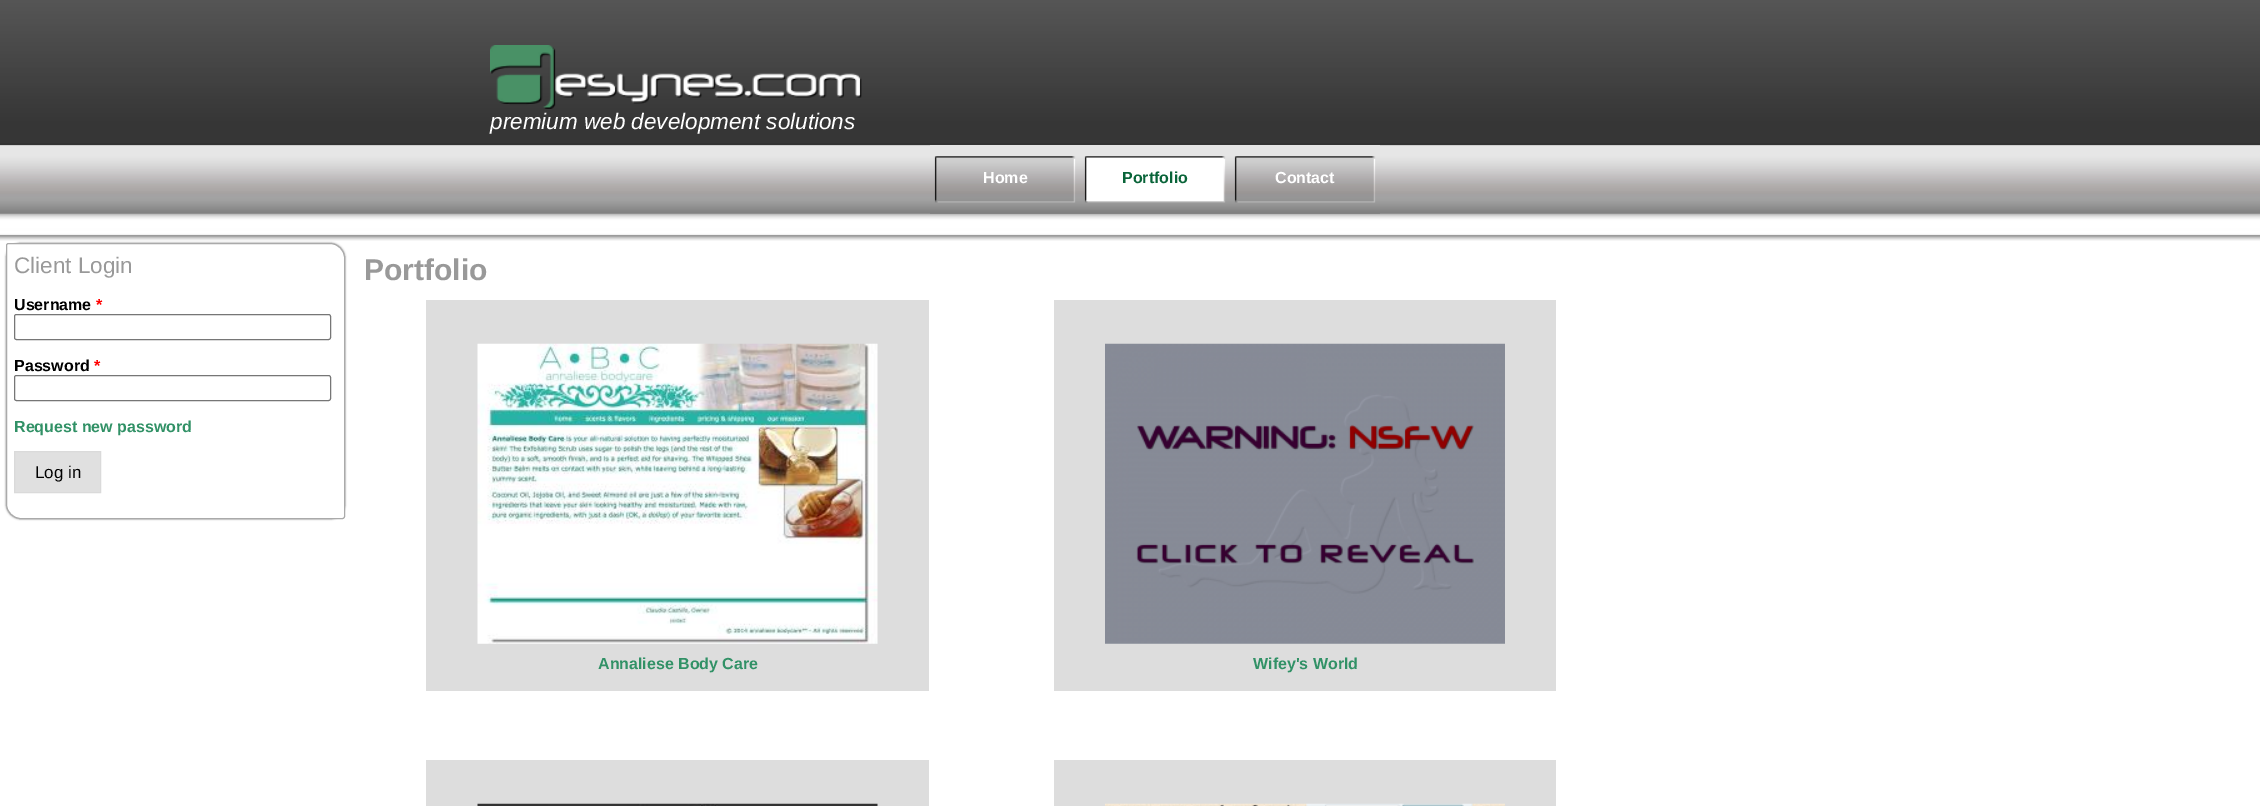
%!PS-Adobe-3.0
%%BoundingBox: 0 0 2260 806
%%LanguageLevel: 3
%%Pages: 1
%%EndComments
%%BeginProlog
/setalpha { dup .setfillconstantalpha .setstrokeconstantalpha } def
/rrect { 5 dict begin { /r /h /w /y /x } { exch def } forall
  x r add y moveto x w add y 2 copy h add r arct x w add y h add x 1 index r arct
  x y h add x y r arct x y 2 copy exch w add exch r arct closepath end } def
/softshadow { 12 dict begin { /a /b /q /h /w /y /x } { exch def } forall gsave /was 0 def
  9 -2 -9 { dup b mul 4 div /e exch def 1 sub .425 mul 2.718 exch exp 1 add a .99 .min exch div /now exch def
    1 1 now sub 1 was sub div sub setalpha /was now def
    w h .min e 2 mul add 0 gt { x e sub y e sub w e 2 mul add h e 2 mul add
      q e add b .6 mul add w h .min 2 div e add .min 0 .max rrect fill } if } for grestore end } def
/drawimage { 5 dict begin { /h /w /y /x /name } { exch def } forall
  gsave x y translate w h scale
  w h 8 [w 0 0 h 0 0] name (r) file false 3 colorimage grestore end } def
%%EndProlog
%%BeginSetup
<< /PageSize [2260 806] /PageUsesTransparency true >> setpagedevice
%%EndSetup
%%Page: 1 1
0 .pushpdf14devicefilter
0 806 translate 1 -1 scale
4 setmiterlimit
1 setgray
0 0 2260 806 rectfill
(images/1.raw) 0 0 2260 241 drawimage
(images/2.raw) 490 45 372 64 drawimage
(images/3.raw) 930 145 150 69 drawimage
(images/4.raw) 1080 145 150 69 drawimage
(images/5.raw) 1230 145 150 69 drawimage
0.467 setgray
6 243 339 276 15 1 1 softshadow
1 setgray
newpath 8.5 243.5 moveto 330 243.5 lineto 338 243.5 344.5 250 344.5 258 curveto 344.5 516.5 lineto 344.5 517.5 343.5 518.5 342.5 518.5 curveto 21 518.5 lineto 13 518.5 6.5 512 6.5 504 curveto 6.5 245.5 lineto 6.5 244.5 7.5 243.5 8.5 243.5 curveto closepath gsave fill grestore
0.667 setgray
stroke
0.463 setgray
14.5 314.5 316 25 2 rrect stroke
14.5 375.5 316 25 2 rrect stroke
0.878 setgray
newpath 14.5 451.5 moveto 100.5 451.5 lineto 100.5 492.5 lineto 14.5 492.5 lineto closepath gsave fill grestore
0.855 setgray
stroke
0.867 setgray
426 300 503 391 rectfill
(images/6.raw) 477 343 401 301 drawimage
1054 300 502 391 rectfill
(images/7.raw) 1105 343 400 301 drawimage
426 760 503 46 rectfill
(images/8.raw) 477 803 401 3 drawimage
1054 760 502 46 rectfill
(images/9.raw) 1105 803 400 3 drawimage
/LiberationSans-Italic [22.5 0 0 -22.5 0 0] selectfont
1 setgray
490 129 moveto (premium web development solutions) show
/LiberationSans-Bold [16 0 0 -16 0 0] selectfont
983 183 moveto (Home) show
0.035 0.392 0.224 setrgbcolor
1122 183 moveto (Portfolio) show
1 setgray
1275 183 moveto (Contact) show
/LiberationSans-Regular [22.5 0 0 -22.5 0 0] selectfont
0.6 setgray
14 273 moveto (Client Login) show
/LiberationSans-Bold [16 0 0 -16 0 0] selectfont
0 setgray
14 310 moveto (Username) show
1 0 0 setrgbcolor
96 310 moveto (*) show
0 setgray
14 371 moveto (Password) show
1 0 0 setrgbcolor
94 371 moveto (*) show
0.192 0.569 0.4 setrgbcolor
14 432 moveto (Request new password) show
/LiberationSans-Regular [17 0 0 -17 0 0] selectfont
0 setgray
35 478 moveto (Log in) show
/LiberationSans-Bold [30 0 0 -30 0 0] selectfont
0.6 setgray
364 280 moveto (Portfolio) show
/LiberationSans-Bold [16 0 0 -16 0 0] selectfont
0.192 0.569 0.4 setrgbcolor
598 669 moveto (Annaliese Body Care) show
1253 669 moveto (Wifey's World) show
.poppdf14devicefilter showpage
%%EOF
